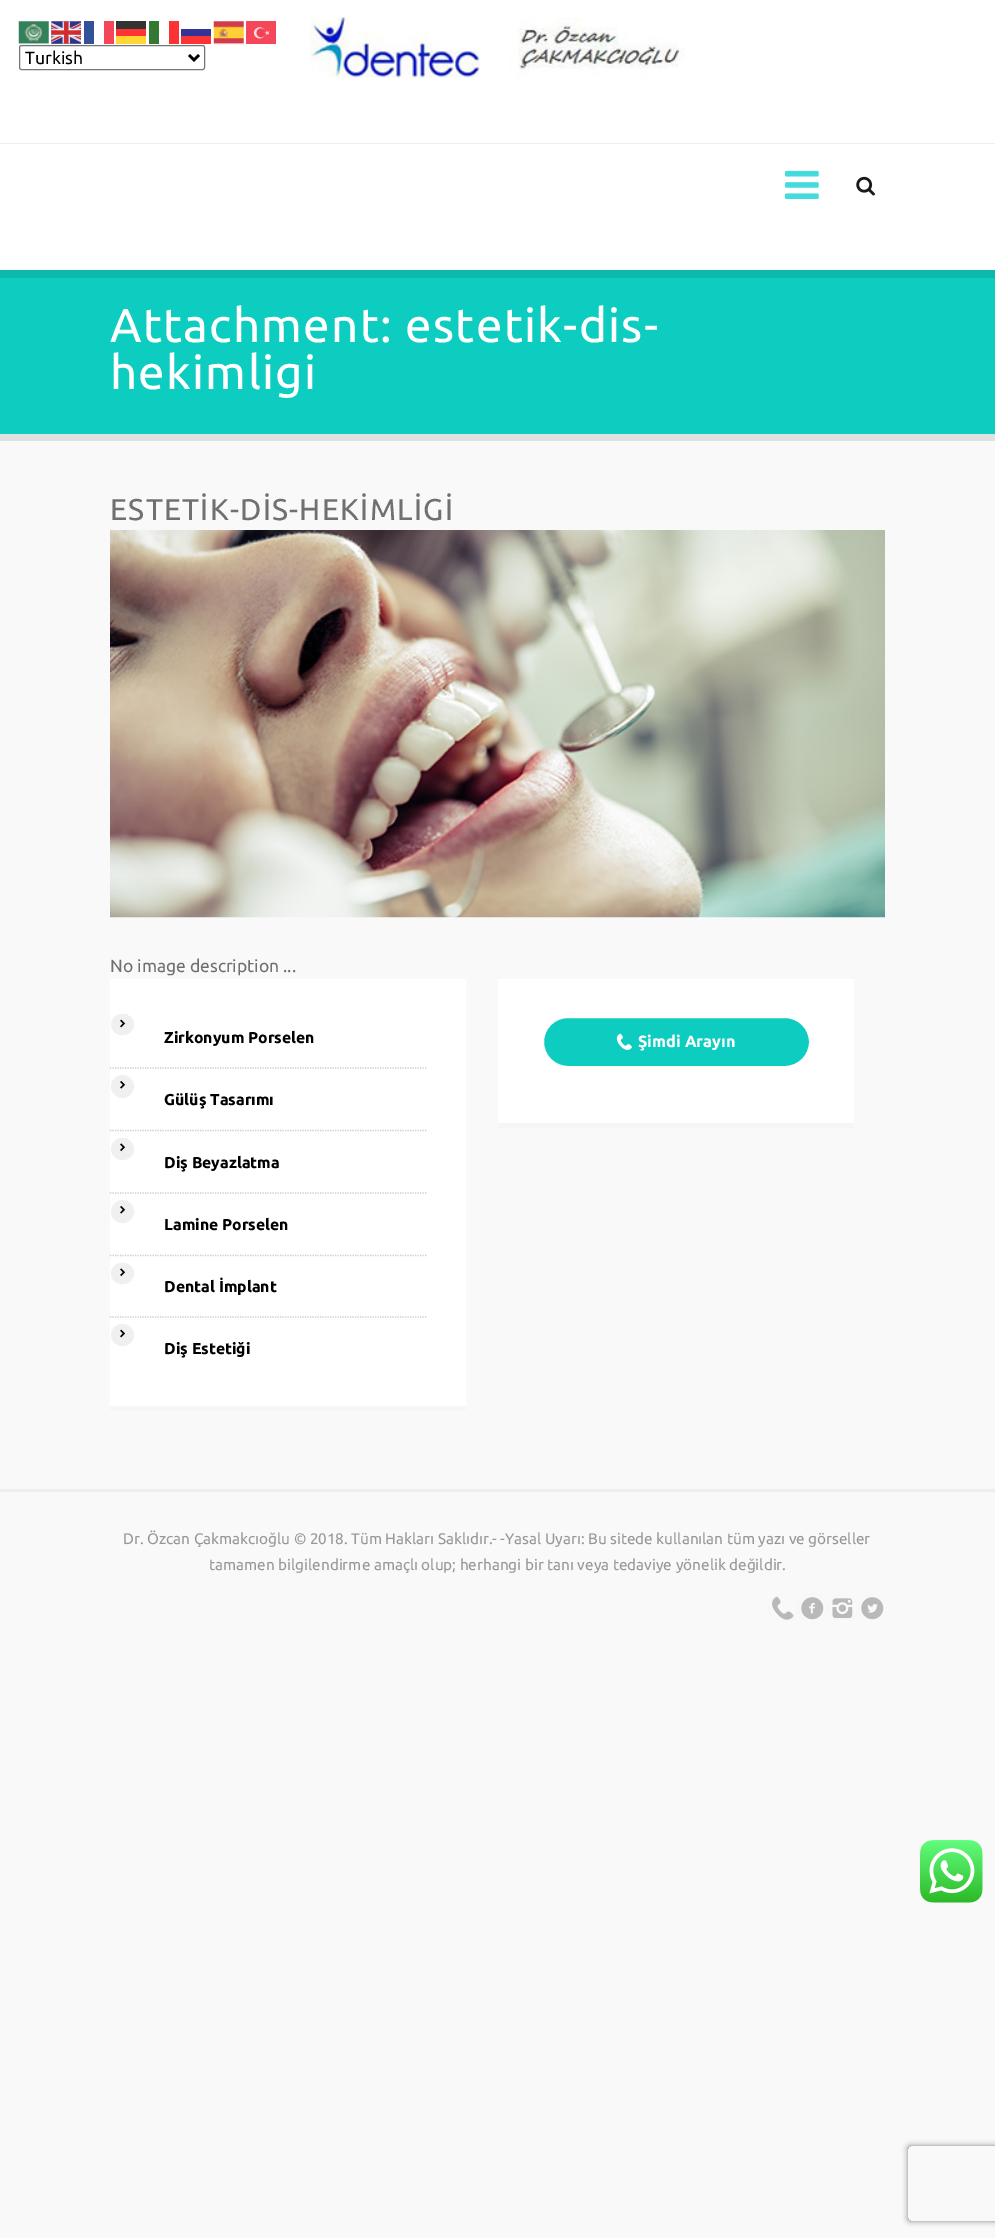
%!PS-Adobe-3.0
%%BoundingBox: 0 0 995 2238
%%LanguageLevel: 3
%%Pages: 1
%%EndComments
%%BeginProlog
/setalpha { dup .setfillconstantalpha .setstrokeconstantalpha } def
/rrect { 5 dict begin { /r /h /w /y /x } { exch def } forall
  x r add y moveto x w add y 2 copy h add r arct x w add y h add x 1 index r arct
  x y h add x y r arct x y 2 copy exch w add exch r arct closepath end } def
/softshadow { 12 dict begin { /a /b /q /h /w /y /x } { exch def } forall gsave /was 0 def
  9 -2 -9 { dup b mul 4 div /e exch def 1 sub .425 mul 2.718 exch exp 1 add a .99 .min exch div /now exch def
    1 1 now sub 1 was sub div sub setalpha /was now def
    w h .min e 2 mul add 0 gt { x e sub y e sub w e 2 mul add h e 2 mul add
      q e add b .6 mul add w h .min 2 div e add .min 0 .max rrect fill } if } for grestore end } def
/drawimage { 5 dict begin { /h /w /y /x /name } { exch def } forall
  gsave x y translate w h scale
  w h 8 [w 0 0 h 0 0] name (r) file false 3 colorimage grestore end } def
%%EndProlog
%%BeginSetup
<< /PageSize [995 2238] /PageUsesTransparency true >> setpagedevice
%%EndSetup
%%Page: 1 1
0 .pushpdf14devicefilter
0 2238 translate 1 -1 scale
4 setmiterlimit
0.976 setgray
0 0 995 2238 rectfill
1 setgray
0 0 995 270 rectfill
(images/1.raw) 18 21 31 24 drawimage
(images/2.raw) 51 21 30 23 drawimage
0.2 0.318 0.6 setrgbcolor
84 21 10 23 rectfill
0.961 0.275 0.349 setrgbcolor
104 21 10 23 rectfill
0.2 setgray
116 21 30 8 rectfill
0.2 0.475 0.2 setrgbcolor
149 21 10 23 rectfill
0.992 0.2 0.2 setrgbcolor
169 21 10 23 rectfill
(images/3.raw) 213 21 31 24 drawimage
(images/4.raw) 246 21 30 23 drawimage
1 0.2 0.2 setrgbcolor
116 29 30 7 rectfill
0.204 0.204 0.596 setrgbcolor
181 29 30 7 rectfill
1 0.839 0.2 setrgbcolor
116 36 30 8 rectfill
0.996 0.204 0.204 setrgbcolor
181 36 30 8 rectfill
0.463 setgray
19.5 45.5 185 24 2 rrect stroke
0 setgray
2.5 setlinewidth
newpath 189 55 moveto 194 60 lineto 199 55 lineto stroke
(images/5.raw) 310 17 375 61 drawimage
0.933 setgray
0 143 995 1 rectfill
(images/6.raw) 785 170 34 29 drawimage
(images/7.raw) 856 176 19 20 drawimage
0.878 setgray
0 434 995 7 rectfill
0.051 0.804 0.753 setrgbcolor
0 278 995 156 rectfill
0.047 0.725 0.678 setrgbcolor
0 270 995 8 rectfill
(images/8.raw) 110 530 775 388 drawimage
1 setgray
110 979 356 427 rectfill
0.965 setgray
110 1406 356 5 rectfill
0.796 setgray
1.2 setlinewidth
[1.25 1.25] 0 setdash
newpath 110 1068 moveto 427.5 1068 lineto stroke
0.941 setgray
111.5 1014.5 22 20 10 rrect gsave fill grestore
1 setlinewidth
[] 0 setdash
stroke
(images/9.raw) 120 1019 6 9 drawimage
0.796 setgray
1.2 setlinewidth
[1.25 1.25] 0 setdash
newpath 110 1130.5 moveto 427.5 1130.5 lineto stroke
0.941 setgray
newpath 122.5 1086.5 11 0 360 arc closepath gsave fill grestore
1 setlinewidth
[] 0 setdash
stroke
(images/10.raw) 120 1080 6 9 drawimage
0.796 setgray
1.2 setlinewidth
[1.25 1.25] 0 setdash
newpath 110 1193 moveto 427.5 1193 lineto stroke
0.941 setgray
111.5 1138.5 22 21 10.5 rrect gsave fill grestore
1 setlinewidth
[] 0 setdash
stroke
(images/11.raw) 120 1143 6 9 drawimage
0.796 setgray
1.2 setlinewidth
[1.25 1.25] 0 setdash
newpath 110 1255.5 moveto 427.5 1255.5 lineto stroke
0.941 setgray
newpath 122.5 1211.5 11 0 360 arc closepath gsave fill grestore
1 setlinewidth
[] 0 setdash
stroke
(images/10.raw) 120 1205 6 9 drawimage
0.796 setgray
1.2 setlinewidth
[1.25 1.25] 0 setdash
newpath 110 1317 moveto 427.5 1317 lineto stroke
0.941 setgray
111.5 1263.5 22 20 10 rrect gsave fill grestore
1 setlinewidth
[] 0 setdash
stroke
(images/11.raw) 120 1268 6 9 drawimage
111.5 1324.5 22 21 10.5 rrect gsave fill grestore
stroke
(images/9.raw) 120 1329 6 9 drawimage
1 setgray
498 979 356 144 rectfill
0.965 setgray
498 1123 356 5 rectfill
0.051 0.804 0.753 setrgbcolor
542 1016 269 52 26 rrect gsave fill grestore
1 setgray
4 setlinewidth
stroke
(images/12.raw) 616 1033 16 17 drawimage
0.933 setgray
0 1489 995 3 rectfill
gsave
766 1593 119 27 rectclip
0.957 0.969 0.976 setrgbcolor
1 setlinewidth
newpath 783 1608 14.5 0 360 arc closepath stroke
grestore
(images/13.raw) 772 1596 22 24 drawimage
gsave
766 1593 119 27 rectclip
0.957 0.969 0.976 setrgbcolor
1 setlinewidth
newpath 813 1608 14.5 0 360 arc closepath stroke
grestore
(images/14.raw) 801 1597 23 23 drawimage
gsave
766 1593 119 27 rectclip
0.957 0.969 0.976 setrgbcolor
1 setlinewidth
newpath 843 1608 14.5 0 360 arc closepath stroke
grestore
(images/15.raw) 832 1598 21 21 drawimage
gsave
766 1593 119 27 rectclip
0.957 0.969 0.976 setrgbcolor
1 setlinewidth
newpath 873 1608 14.5 0 360 arc closepath stroke
grestore
(images/16.raw) 861 1597 23 23 drawimage
(images/17.raw) 920 1840 63 63 drawimage
gsave
newpath 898 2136 moveto 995 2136 lineto 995 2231 lineto 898 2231 lineto closepath 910.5 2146 moveto 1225.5 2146 lineto 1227 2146 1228 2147 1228 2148.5 curveto 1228 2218.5 lineto 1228 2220 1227 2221 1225.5 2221 curveto 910.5 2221 lineto 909 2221 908 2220 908 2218.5 curveto 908 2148.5 lineto 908 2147 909 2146 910.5 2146 curveto closepath eoclip newpath
0.502 setgray
908 2146 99 75 2.5 3 1 softshadow
grestore
/Ubuntu-Regular [17.5 0 0 -17.5 0 0] selectfont
0 setgray
25 64 moveto (Turkish) show
/Ubuntu-Regular [47.5 0 0 -47.5 0 0] selectfont
1 setgray
110 342 moveto 1.25 0 (Attachment: estetik-dis-) ashow
110 389 moveto 1.25 0 (hekimligi) ashow
/Ubuntu-Regular [30 0 0 -30 0 0] selectfont
0.439 setgray
110 520 moveto 1.25 0 (ESTETİK-DİS-HEKİMLİGİ) ashow
/Ubuntu-Regular [17.5 0 0 -17.5 0 0] selectfont
110 972 moveto (No image description ...) show
/Ubuntu-Bold [15.75 0 0 -15.75 0 0] selectfont
0 setgray
164 1043 moveto (Zirkonyum Porselen) show
164 1105 moveto (Gülüş Tasarımı) show
164 1168 moveto (Diş Beyazlatma) show
164 1230 moveto (Lamine Porselen) show
164 1292 moveto (Dental İmplant) show
164 1354 moveto (Diş Estetiği) show
/Ubuntu-Bold [16.25 0 0 -16.25 0 0] selectfont
1 setgray
638 1047 moveto (Şimdi Arayın) show
/Ubuntu-Regular [15.3 0 0 -15.3 0 0] selectfont
0.592 setgray
123 1544 moveto (Dr. Özcan Çakmakcıoğlu © 2018. Tüm Hakları Saklıdır.- -Yasal Uyarı: Bu sitede kullanılan tüm yazı ve görseller) show
209 1570 moveto (tamamen bilgilendirme amaçlı olup; herhangi bir tanı veya tedaviye yönelik değildir.) show
.poppdf14devicefilter showpage
%%EOF
